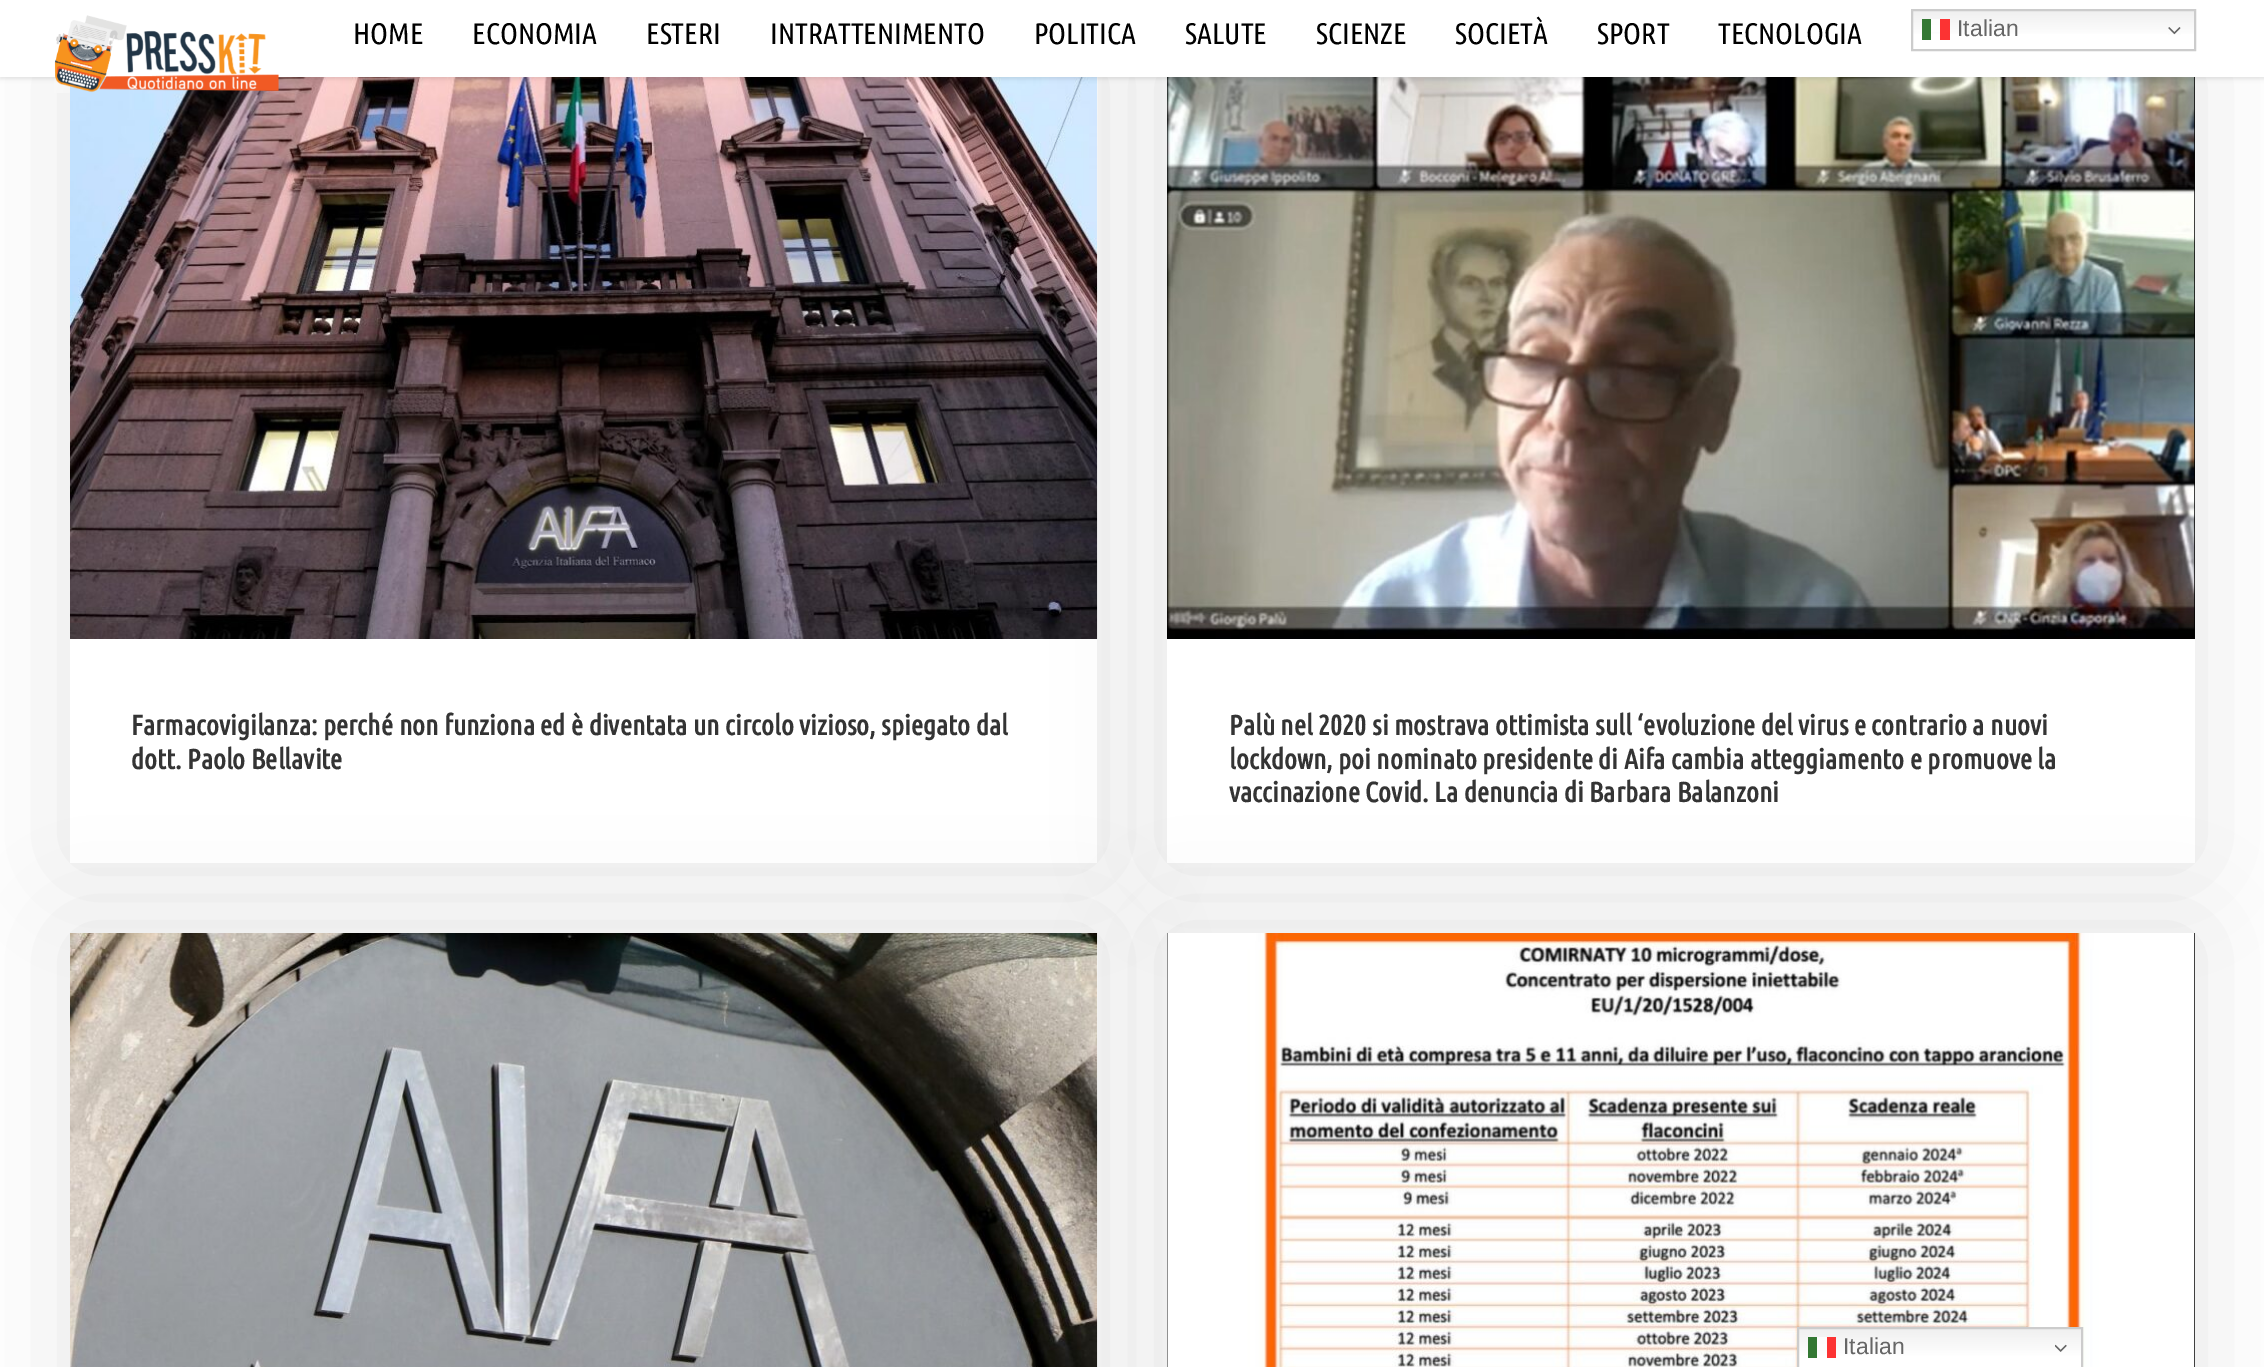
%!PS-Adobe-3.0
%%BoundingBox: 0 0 2264 1367
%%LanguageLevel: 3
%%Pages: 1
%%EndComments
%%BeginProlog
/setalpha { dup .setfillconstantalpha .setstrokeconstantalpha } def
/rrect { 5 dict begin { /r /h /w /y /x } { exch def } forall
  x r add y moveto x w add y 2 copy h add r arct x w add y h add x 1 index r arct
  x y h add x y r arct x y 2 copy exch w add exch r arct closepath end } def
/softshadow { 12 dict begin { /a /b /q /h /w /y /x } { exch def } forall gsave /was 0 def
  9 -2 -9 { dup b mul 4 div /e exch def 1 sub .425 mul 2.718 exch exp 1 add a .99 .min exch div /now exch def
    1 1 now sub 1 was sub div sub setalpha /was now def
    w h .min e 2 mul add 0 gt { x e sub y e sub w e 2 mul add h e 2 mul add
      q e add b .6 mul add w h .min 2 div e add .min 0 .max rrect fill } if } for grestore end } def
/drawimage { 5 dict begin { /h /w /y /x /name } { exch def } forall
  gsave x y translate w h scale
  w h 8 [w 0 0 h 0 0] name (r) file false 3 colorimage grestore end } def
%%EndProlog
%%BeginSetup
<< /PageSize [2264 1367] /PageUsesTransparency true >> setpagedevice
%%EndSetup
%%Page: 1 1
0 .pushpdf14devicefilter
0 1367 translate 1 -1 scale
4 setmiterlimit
1 setgray
0 0 2264 1367 rectfill
0 setgray
70 61 1027 802 0 52.5 0.1 softshadow
1 setgray
70 639 1027 224 rectfill
0 setgray
1167 61 1028 802 0 52.5 0.1 softshadow
(images/3.raw) 70 77 1028 562 drawimage
1167 77 1028 562 rectfill
(images/4.raw) 1167 77 1028 562 drawimage
0 2 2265 77 0 2 0.1 softshadow
1 setgray
0 0 2264 77 rectfill
(images/1.raw) 54 15 225 78 drawimage
gsave newpath 1913 11 moveto 2194 11 lineto 2194 34 lineto 1913 34 lineto closepath clip newpath
<< /ShadingType 2 /ColorSpace /DeviceRGB /Coords [2054 9 2054 51] /Extend [true true] /Function << /FunctionType 3 /Domain [0 1] /Functions [<< /FunctionType 2 /Domain [0 1] /C0 [0.937 0.937 0.937] /C1 [1 1 1] /N 1 >> << /FunctionType 2 /Domain [0 1] /C0 [1 1 1] /C1 [1 1 1] /N 1 >>] /Bounds [0.7] /Encode [0 1 0 1] >> >> shfill grestore
0.8 setgray
2 setlinewidth
1912 10 283 40 rectstroke
0.2 0.471 0.2 setrgbcolor
1922 19 9 21 rectfill
0.8 setalpha
1 setgray
1931 19 9 13 rectfill
1 setalpha
0.988 0.2 0.2 setrgbcolor
1940 19 10 21 rectfill
(images/2.raw) 2168 27 13 8 drawimage
1 setgray
1167 639 1028 224 rectfill
0 setgray
70 933 1027 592 0 52.5 0.1 softshadow
1167 933 1028 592 0 52.5 0.1 softshadow
(images/5.raw) 70 933 1028 434 drawimage
1167 933 1028 434 rectfill
(images/6.raw) 1167 933 1028 434 drawimage
gsave newpath 1799 1329 moveto 2081 1329 lineto 2081 1367 lineto 1799 1367 lineto closepath clip newpath
<< /ShadingType 2 /ColorSpace /DeviceRGB /Coords [1940 1327 1940 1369] /Extend [true true] /Function << /FunctionType 3 /Domain [0 1] /Functions [<< /FunctionType 2 /Domain [0 1] /C0 [0.937 0.937 0.937] /C1 [1 1 1] /N 1 >> << /FunctionType 2 /Domain [0 1] /C0 [1 1 1] /C1 [1 1 1] /N 1 >>] /Bounds [0.7] /Encode [0 1 0 1] >> >> shfill grestore
0.8 setgray
1798 1328 284 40 rectstroke
0.2 0.471 0.2 setrgbcolor
1808 1337 9 21 rectfill
0.8 setalpha
1 setgray
1817 1337 10 13 rectfill
1 setalpha
0.988 0.2 0.2 setrgbcolor
1827 1337 9 21 rectfill
(images/7.raw) 2055 1344 12 8 drawimage
/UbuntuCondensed-Regular [29.75 0 0 -29.75 0 0] selectfont
0 setgray
353 44 moveto (HOME) show
472 44 moveto (ECONOMIA) show
646 44 moveto (ESTERI) show
770 44 moveto (INTRATTENIMENTO) show
1034 44 moveto (POLITICA) show
1185 44 moveto (SALUTE) show
1316 44 moveto (SCIENZE) show
1455 44 moveto (SOCIETÀ) show
1597 44 moveto (SPORT) show
1718 44 moveto (TECNOLOGIA) show
/LiberationSans-Regular [23 0 0 -23 0 0] selectfont
0.4 setgray
1957 36 moveto (Italian) show
/UbuntuCondensed-Bold [28 0 0 -28 0 0] selectfont
0.204 setgray
131 735 moveto (Farmacovigilanza: perché non funziona ed è diventata un circolo vizioso, spiegato dal) show
131 769 moveto (dott. Paolo Bellavite) show
1229 735 moveto (Palù nel 2020 si mostrava ottimista sull ‘evoluzione del virus e contrario a nuovi) show
1229 769 moveto (lockdown, poi nominato presidente di Aifa cambia atteggiamento e promuove la) show
1229 802 moveto (vaccinazione Covid. La denuncia di Barbara Balanzoni) show
/LiberationSans-Regular [23 0 0 -23 0 0] selectfont
0.4 setgray
1843 1354 moveto (Italian) show
.poppdf14devicefilter showpage
%%EOF
